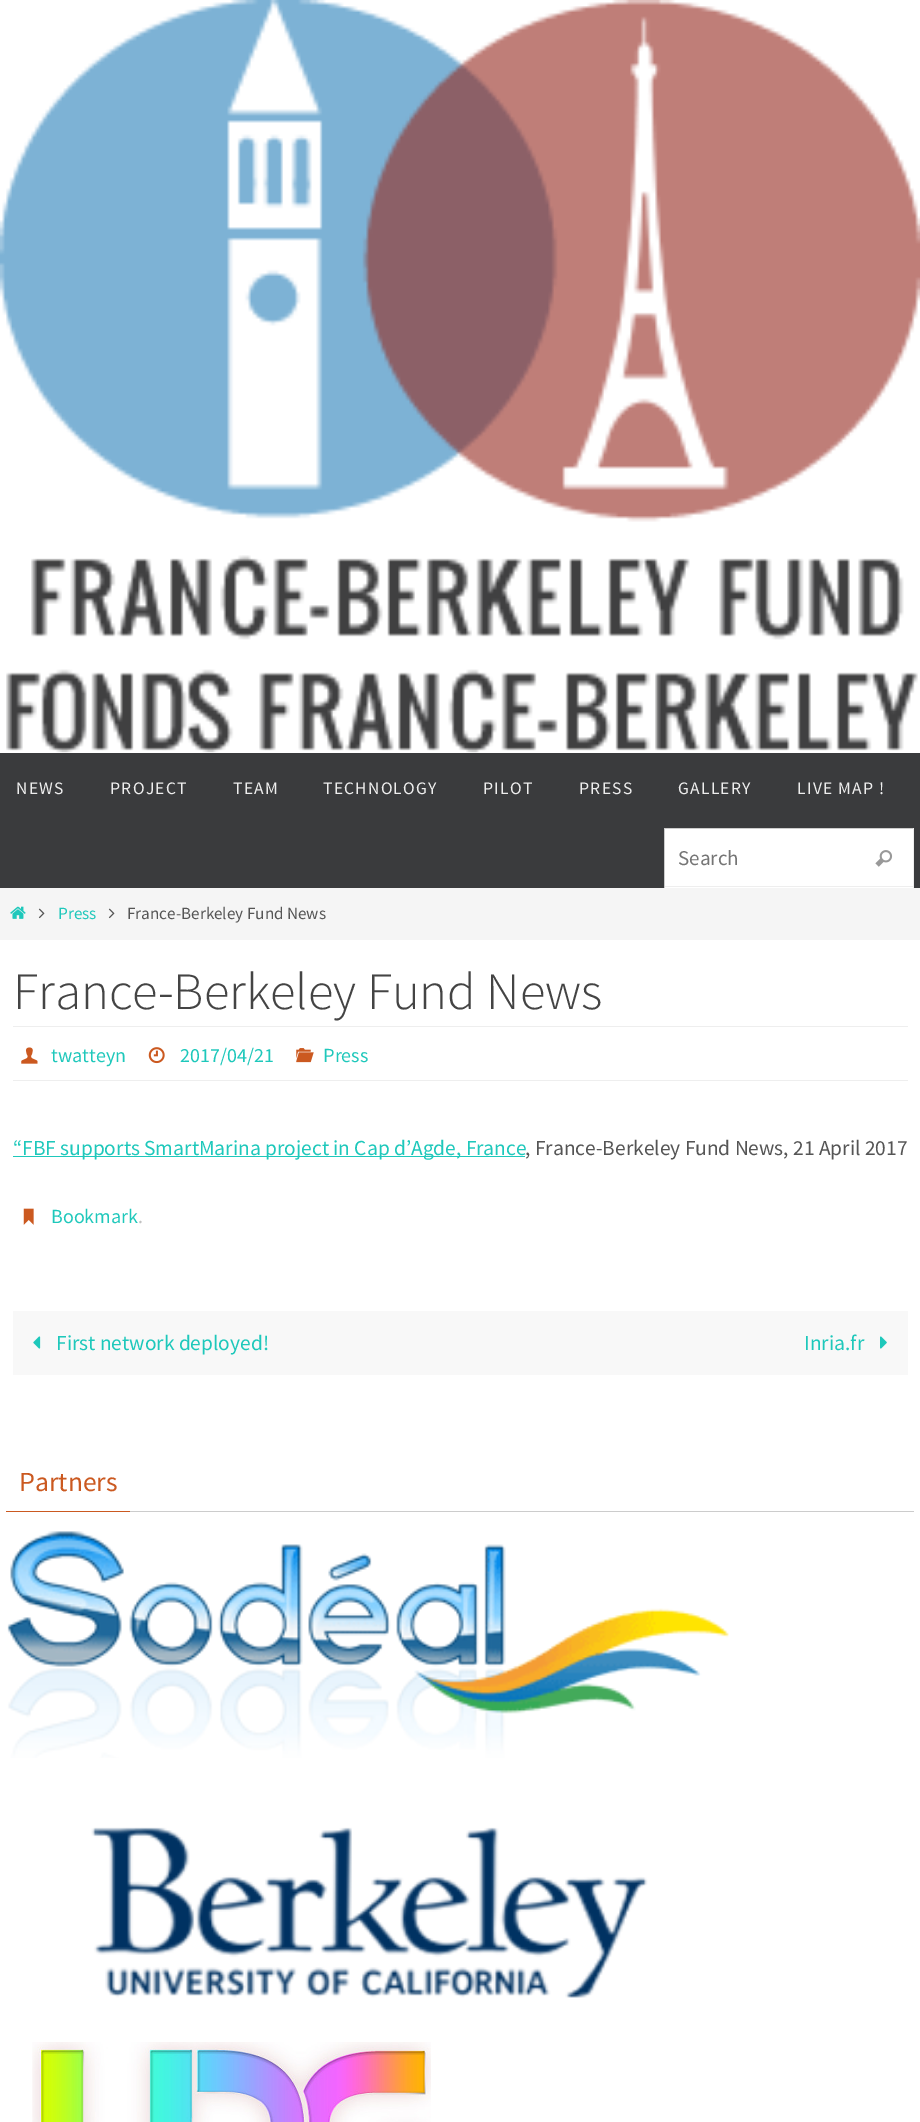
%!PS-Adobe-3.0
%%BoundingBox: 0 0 920 2122
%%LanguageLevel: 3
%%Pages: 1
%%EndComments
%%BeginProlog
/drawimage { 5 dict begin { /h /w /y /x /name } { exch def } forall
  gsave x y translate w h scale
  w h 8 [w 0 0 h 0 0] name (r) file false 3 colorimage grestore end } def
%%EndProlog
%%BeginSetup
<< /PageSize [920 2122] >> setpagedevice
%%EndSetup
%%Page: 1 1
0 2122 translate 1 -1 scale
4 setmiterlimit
1 setgray
0 0 920 2122 rectfill
(images/1.raw) 0 0 920 753 drawimage
0.227 0.231 0.239 setrgbcolor
0 753 920 135 rectfill
1 setgray
665 829 248 59 rectfill
0.8 setgray
664 828 250 1 rectfill
0.933 setgray
913 828 1 60 rectfill
664 886 250 1 rectfill
0.8 setgray
664 828 1 60 rectfill
(images/2.raw) 875 850 18 17 drawimage
0.961 setgray
0 888 920 52 rectfill
(images/3.raw) 10 906 16 13 drawimage
(images/4.raw) 38 908 7 11 drawimage
(images/4.raw) 108 908 7 11 drawimage
0.933 setgray
13 1026 895 1 rectfill
13 1080 895 1 rectfill
(images/5.raw) 21 1047 17 17 drawimage
(images/6.raw) 148 1047 17 17 drawimage
(images/7.raw) 296 1048 18 15 drawimage
0.118 0.784 0.733 setrgbcolor
13 1156 512 1 rectfill
(images/8.raw) 23 1208 11 17 drawimage
0.973 setgray
13 1311 895 64 rectfill
(images/9.raw) 33 1336 8 13 drawimage
(images/10.raw) 880 1336 7 13 drawimage
0.8 setgray
130 1511 784 1 rectfill
0.796 0.349 0.125 setrgbcolor
6 1511 124 1 rectfill
(images/11.raw) 7 1531 722 227 drawimage
(images/12.raw) 91 1827 557 171 drawimage
(images/13.raw) 32 2042 399 80 drawimage
/SourceSansPro-Regular [17.5 0 0 -17.5 0 0] selectfont
0.933 setgray
16 794 moveto 1.25 0 (NEWS) ashow
110 794 moveto 1.25 0 (PROJECT) ashow
233 794 moveto 1.25 0 (TEAM) ashow
323 794 moveto 1.25 0 (TECHNOLOGY) ashow
483 794 moveto 1.25 0 (PILOT) ashow
579 794 moveto 1.25 0 (PRESS) ashow
678 794 moveto 1.25 0 (GALLERY) ashow
797 794 moveto 1.25 0 (LIVE MAP !) ashow
/SourceSansPro-Regular [21 0 0 -21 0 0] selectfont
0.459 setgray
678 865 moveto (Search) show
/SourceSansPro-Regular [17.1 0 0 -17.1 0 0] selectfont
0.118 0.784 0.733 setrgbcolor
58 919 moveto (Press) show
0.333 setgray
127 919 moveto (France-Berkeley Fund News) show
/SourceSansPro-Light [52.5 0 0 -52.5 0 0] selectfont
0.267 setgray
13 1009 moveto (France-Berkeley Fund News) show
/SourceSansPro-Regular [20 0 0 -20 0 0] selectfont
0.118 0.784 0.733 setrgbcolor
51 1062 moveto (twatteyn) show
180 1062 moveto (2017/04/21) show
323 1062 moveto (Press) show
/SourceSansPro-Regular [21.4 0 0 -21.4 0 0] selectfont
13 1155 moveto (“FBF supports SmartMarina project in Cap d’Agde, France) show
0.333 setgray
525 1155 moveto (, France-Berkeley Fund News, 21 April 2017) show
/SourceSansPro-Regular [20 0 0 -20 0 0] selectfont
0.118 0.784 0.733 setrgbcolor
51 1223 moveto (Bookmark) show
0.757 setgray
138 1223 moveto (.) show
/SourceSansPro-Regular [21.4 0 0 -21.4 0 0] selectfont
0.118 0.784 0.733 setrgbcolor
56 1350 moveto (First network deployed!) show
804 1350 moveto (Inria.fr) show
/SourceSansPro-Regular [27.5 0 0 -27.5 0 0] selectfont
0.796 0.349 0.125 setrgbcolor
19 1491 moveto (Partners) show
showpage
%%EOF
